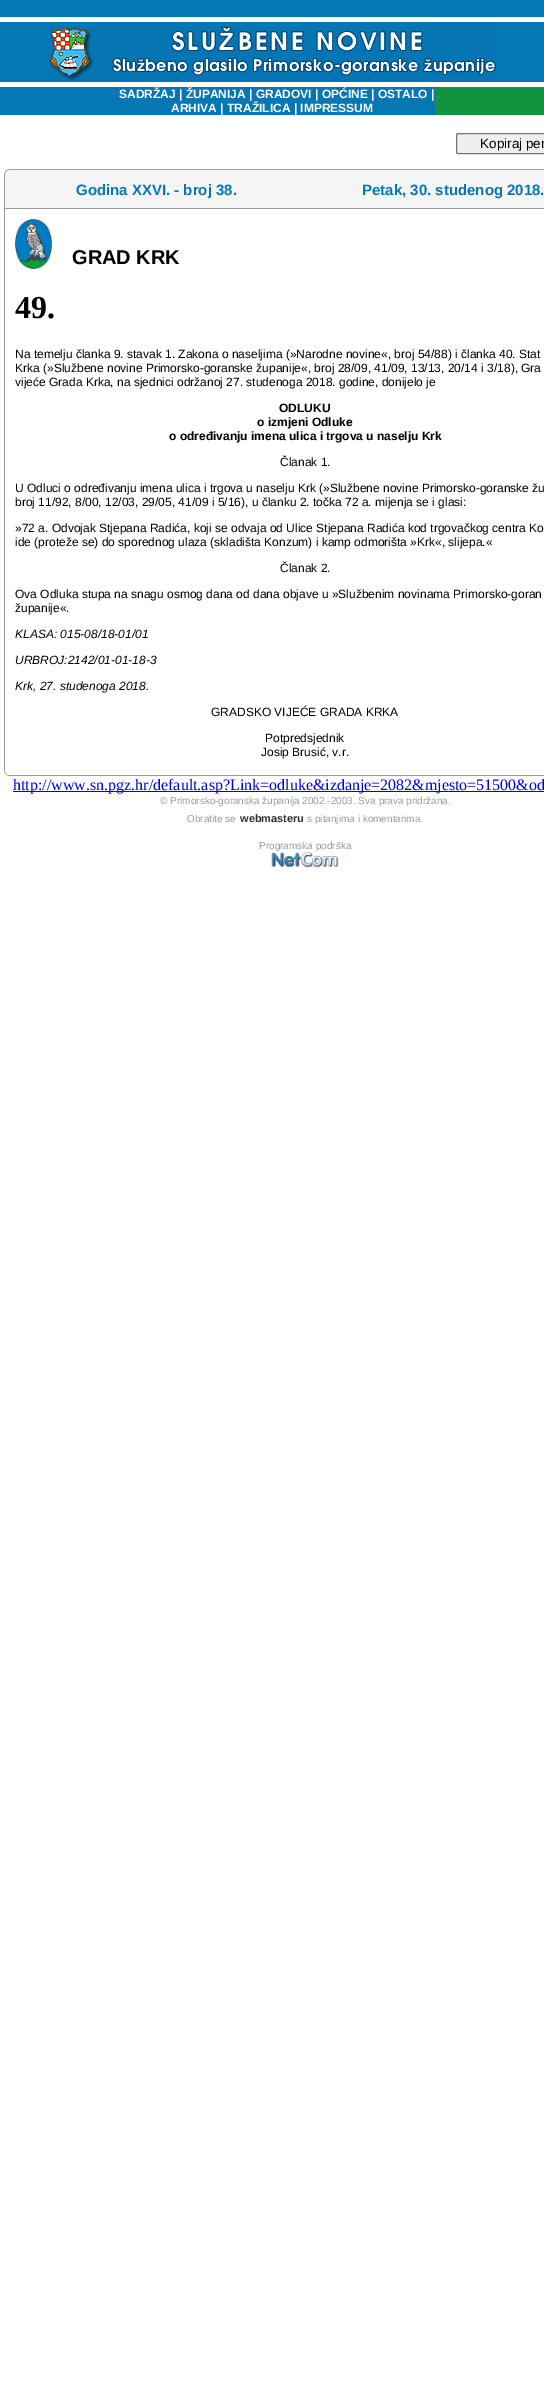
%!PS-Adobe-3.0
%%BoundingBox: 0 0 544 2397
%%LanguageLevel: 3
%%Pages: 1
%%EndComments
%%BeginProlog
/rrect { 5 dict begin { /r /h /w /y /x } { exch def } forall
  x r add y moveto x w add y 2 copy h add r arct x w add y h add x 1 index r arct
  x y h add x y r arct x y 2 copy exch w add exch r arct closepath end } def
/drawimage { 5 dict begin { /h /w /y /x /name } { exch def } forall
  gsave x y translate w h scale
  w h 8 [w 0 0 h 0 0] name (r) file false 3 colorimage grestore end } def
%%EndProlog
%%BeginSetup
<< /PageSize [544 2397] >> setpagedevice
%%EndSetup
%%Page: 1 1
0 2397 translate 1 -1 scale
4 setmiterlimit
1 setgray
0 0 544 2397 rectfill
(images/1.raw) 0 0 544 82 drawimage
(images/2.raw) 49 26 447 54 drawimage
0.02 0.467 0.706 setrgbcolor
0 87 435 28 rectfill
0.067 0.576 0.247 setrgbcolor
435 87 109 28 rectfill
0.937 setgray
456.5 133.5 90 20 1.5 rrect gsave fill grestore
0.463 setgray
stroke
(images/3.raw) 4 169 7 7 drawimage
0.6 setgray
11 169 533 1 rectfill
0.961 setgray
11 170 533 6 rectfill
0.6 setgray
4 176 1 32 rectfill
0.961 setgray
5 176 539 32 rectfill
0.6 setgray
4 208 540 1 rectfill
4 209 1 560 rectfill
(images/4.raw) 15 219 37 50 drawimage
(images/5.raw) 4 769 7 7 drawimage
11 775 533 1 rectfill
0 0 0.933 setrgbcolor
13 791 531 1 rectfill
(images/6.raw) 271 852 68 16 drawimage
/LiberationSans-Bold [12 0 0 -12 0 0] selectfont
1 setgray
119 98 moveto (SADRŽAJ | ŽUPANIJA | GRADOVI | OPĆINE | OSTALO |) show
171 112 moveto (ARHIVA | TRAŽILICA | IMPRESSUM) show
/LiberationSans-Regular [13.5 0 0 -13.5 0 0] selectfont
0 setgray
480 148 moveto (Kopiraj per) show
/LiberationSans-Bold [15 0 0 -15 0 0] selectfont
0.02 0.467 0.706 setrgbcolor
76 195 moveto (Godina XXVI. - broj 38.) show
362 195 moveto (Petak, 30. studenog 2018.) show
/LiberationSans-Bold [20 0 0 -20 0 0] selectfont
0 setgray
72 264 moveto (GRAD KRK) show
/LiberationSerif-Bold [32 0 0 -32 0 0] selectfont
15 318 moveto (49.) show
/LiberationSans-Regular [12 0 0 -12 0 0] selectfont
15 358 moveto (Na temelju članka 9. stavak 1. Zakona o naseljima \(»Narodne novine«, broj 54/88\) i članka 40. Stat) show
15 372 moveto (Krka \(»Službene novine Primorsko-goranske županije«, broj 28/09, 41/09, 13/13, 20/14 i 3/18\), Gra) show
15 386 moveto (vijeće Grada Krka, na sjednici održanoj 27. studenoga 2018. godine, donijelo je) show
/LiberationSans-Bold [12 0 0 -12 0 0] selectfont
279 412 moveto (ODLUKU) show
257 426 moveto (o izmjeni Odluke) show
169 440 moveto (o određivanju imena ulica i trgova u naselju Krk) show
/LiberationSans-Regular [12 0 0 -12 0 0] selectfont
280 466 moveto (Članak 1.) show
15 492 moveto (U Odluci o određivanju imena ulica i trgova u naselju Krk \(»Službene novine Primorsko-goranske žu) show
15 506 moveto (broj 11/92, 8/00, 12/03, 29/05, 41/09 i 5/16\), u članku 2. točka 72 a. mijenja se i glasi:) show
15 532 moveto (»72 a. Odvojak Stjepana Radića, koji se odvaja od Ulice Stjepana Radića kod trgovačkog centra Ko) show
15 546 moveto (ide \(proteže se\) do sporednog ulaza \(skladišta Konzum\) i kamp odmorišta »Krk«, slijepa.«) show
280 572 moveto (Članak 2.) show
15 598 moveto (Ova Odluka stupa na snagu osmog dana od dana objave u »Službenim novinama Primorsko-goran) show
15 612 moveto (županije«.) show
/LiberationSans-Italic [12 0 0 -12 0 0] selectfont
15 638 moveto (KLASA: 015-08/18-01/01) show
15 664 moveto (URBROJ:2142/01-01-18-3) show
15 690 moveto (Krk, 27. studenoga 2018.) show
/LiberationSans-Regular [12 0 0 -12 0 0] selectfont
211 716 moveto (GRADSKO VIJEĆE GRADA KRKA) show
265 742 moveto (Potpredsjednik) show
261 756 moveto (Josip Brusić, v.r.) show
/LiberationSerif-Regular [16 0 0 -16 0 0] selectfont
0 0 0.933 setrgbcolor
13 790 moveto (http://www.sn.pgz.hr/default.asp?Link=odluke&izdanje=2082&mjesto=51500&od) show
/LiberationSans-Regular [10 0 0 -10 0 0] selectfont
0.6 setgray
160 804 moveto (© Primorsko-goranska županija 2002.-2003. Sva prava pridržana.) show
187 822 moveto (Obratite se) show
/LiberationSans-Bold [11 0 0 -11 0 0] selectfont
0.2 setgray
240 822 moveto (webmasteru) show
/LiberationSans-Regular [10 0 0 -10 0 0] selectfont
0.6 setgray
307 822 moveto (s pitanjima i komentarima.) show
259 849 moveto (Programska podrška) show
showpage
%%EOF
